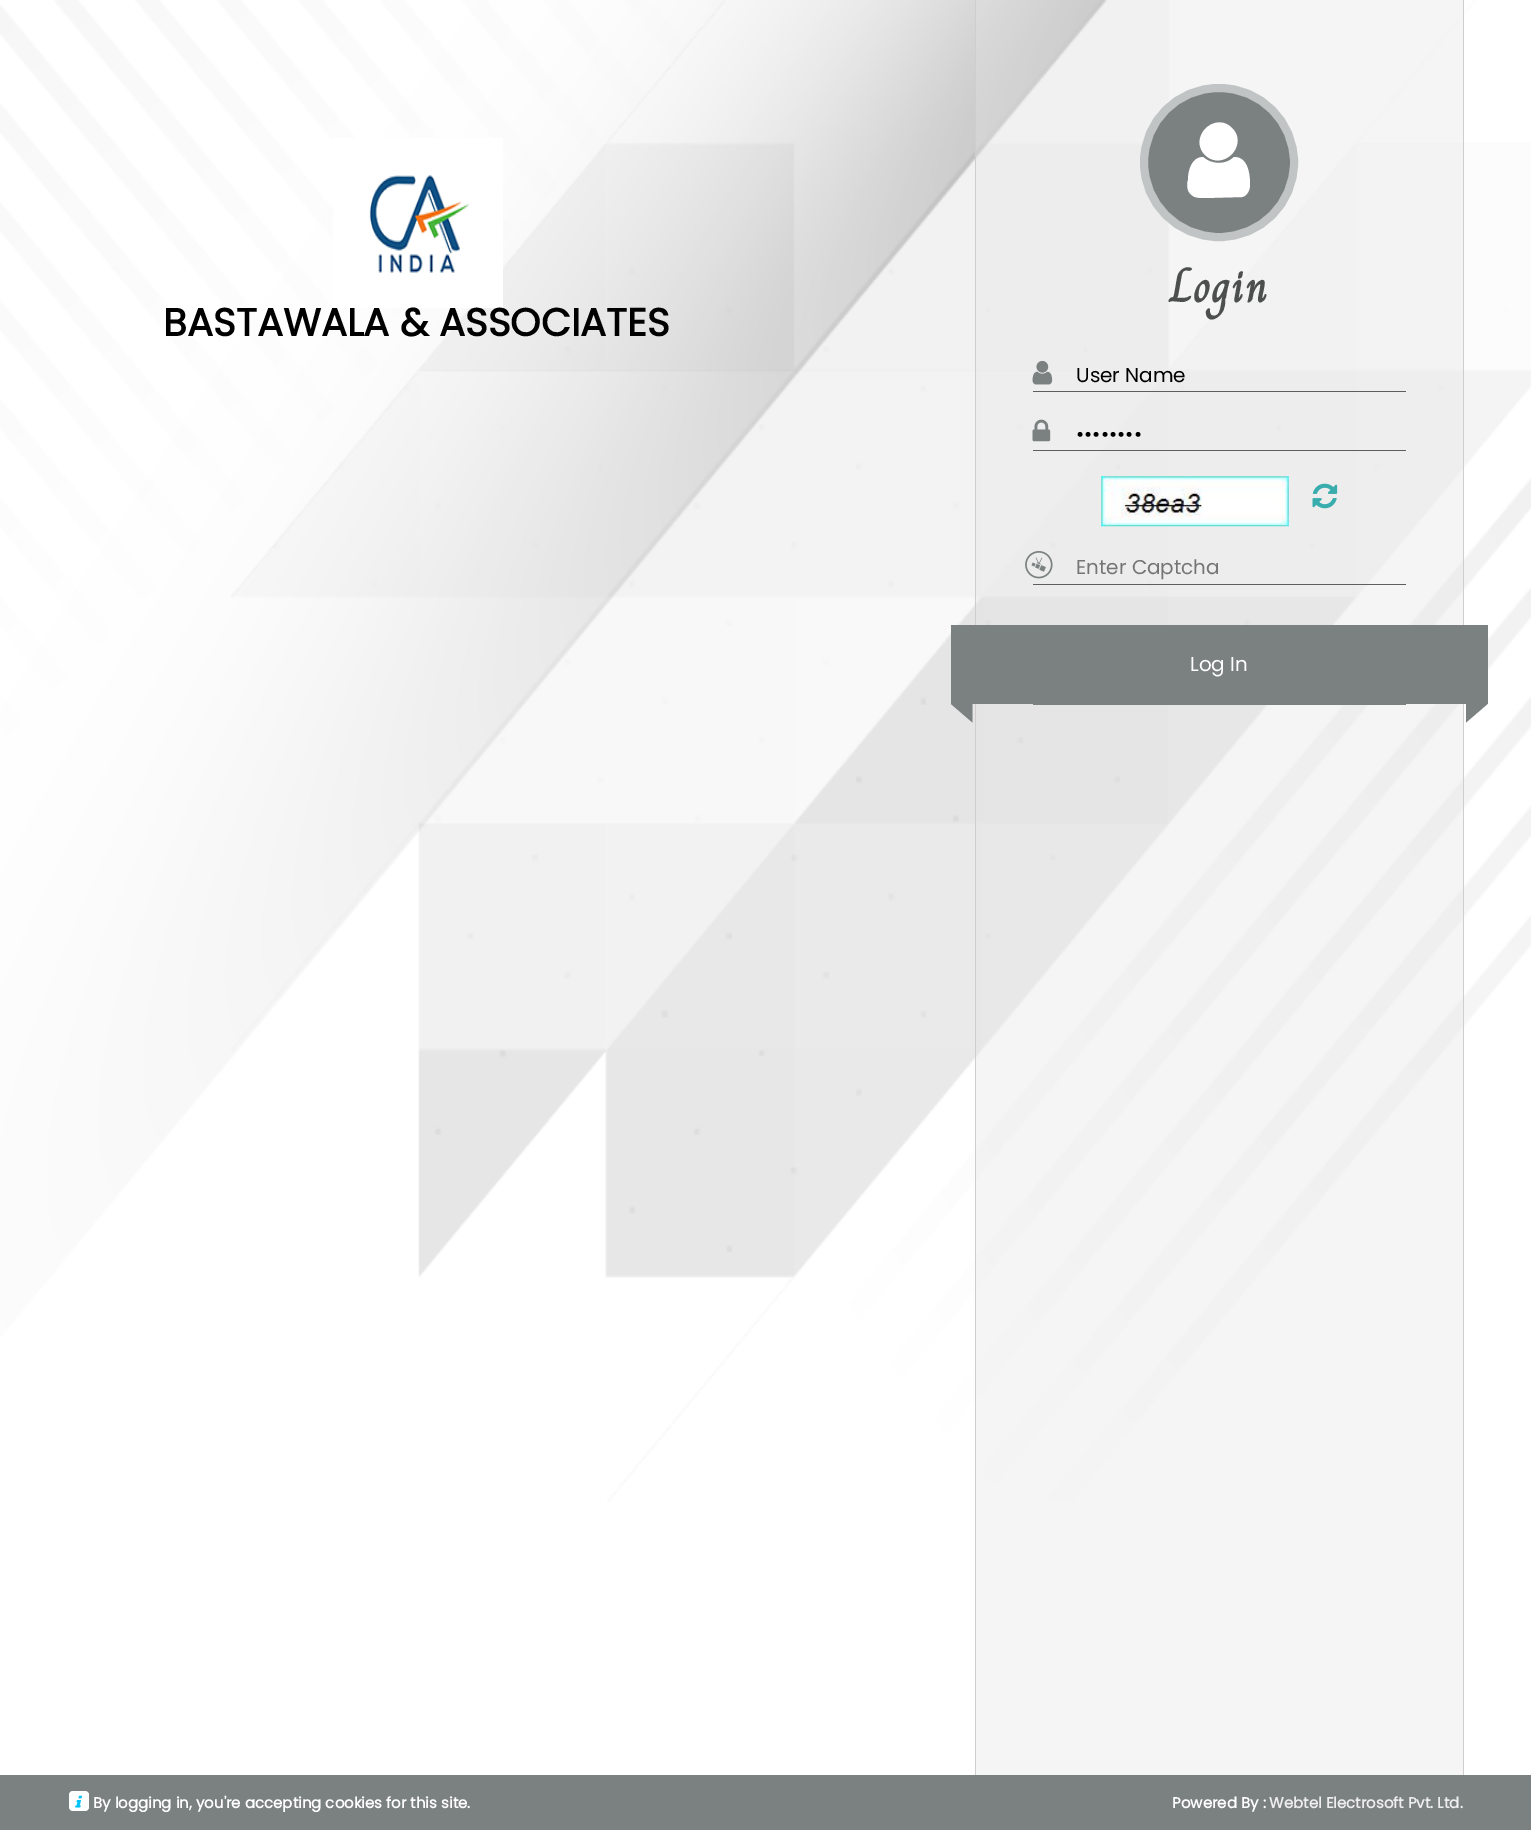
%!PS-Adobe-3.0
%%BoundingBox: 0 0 1531 1830
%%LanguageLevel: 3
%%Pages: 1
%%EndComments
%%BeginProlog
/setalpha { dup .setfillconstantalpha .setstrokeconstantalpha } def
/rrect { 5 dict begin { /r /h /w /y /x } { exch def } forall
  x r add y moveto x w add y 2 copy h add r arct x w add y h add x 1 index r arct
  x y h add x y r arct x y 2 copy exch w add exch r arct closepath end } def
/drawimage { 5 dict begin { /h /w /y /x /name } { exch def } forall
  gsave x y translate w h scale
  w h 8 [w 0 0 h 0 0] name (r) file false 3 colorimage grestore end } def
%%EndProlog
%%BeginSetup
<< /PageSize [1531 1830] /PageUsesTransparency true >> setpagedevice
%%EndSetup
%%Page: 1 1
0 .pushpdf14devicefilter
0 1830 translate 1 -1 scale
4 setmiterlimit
1 setgray
0 0 1531 1830 rectfill
(images/1.raw) 0 0 1531 1502 drawimage
333 138 170 170 rectfill
(images/2.raw) 369 175 101 98 drawimage
0.36 setalpha
0.898 0.89 0.89 setrgbcolor
976 0 487 1775 rectfill
1 setalpha
0.812 0.804 0.804 setrgbcolor
1463 0 1 1775 rectfill
975 0 1 1775 rectfill
0.482 0.502 0.502 setrgbcolor
1144 88 150 149 74.5 rrect gsave fill grestore
0.753 0.769 0.769 setrgbcolor
8 setlinewidth
stroke
1 setgray
newpath 1250 185 moveto 1250 190 1247 196 1242 197 curveto 1205 198 lineto 1202 198 1198 198 1195 197 curveto 1192 196 1189 193 1188 190 curveto 1187 186 1187 183 1188 180 curveto 1188 170 1192 157 1203 157 curveto 1212 165 1226 165 1234 157 curveto 1248 157 1250 174 1250 185 curveto closepath 1232 128 moveto 1249 145 1223 172 1205 155 curveto 1188 137 1215 111 1232 128 curveto closepath fill
(images/3.raw) 1032 360 21 25 drawimage
0.376 0.365 0.369 setrgbcolor
1033 391 373 1 rectfill
(images/4.raw) 1032 419 19 23 drawimage
1033 450 373 1 rectfill
(images/5.raw) 1101 476 188 51 drawimage
(images/6.raw) 1312 483 26 26 drawimage
(images/7.raw) 1025 551 28 28 drawimage
1033 584 373 1 rectfill
0.482 0.502 0.502 setrgbcolor
1033 625 373 80 rectfill
951 625 82 79 rectfill
newpath 972.5 704 moveto 972.5 722.5 lineto 951 704 lineto closepath fill
1406 625 82 79 rectfill
newpath 1466 722.5 moveto 1466 704 lineto 1487.5 704 lineto closepath fill
0 1775 1531 55 rectfill
1 setgray
69 1791 20 20 4 rrect fill
(images/8.raw) 75 1795 8 13 drawimage
/Poppins-Bold [38.75 0 0 -38.75 0 0] selectfont
0 setgray
163 336 moveto (BASTAWALA & ASSOCIATES) show
/Charm-Bold [44 0 0 -44 0 0] selectfont
0.302 0.31 0.31 setrgbcolor
1170 302 moveto 1.25 0 (Login) ashow
/Poppins-Regular [20 0 0 -20 0 0] selectfont
0 setgray
1076 382 moveto (User Name) show
1076 441 moveto (••••••••) show
0.459 setgray
1076 574 moveto (Enter Captcha) show
1 setgray
1190 671 moveto (Log In) show
/Poppins-Bold [15 0 0 -15 0 0] selectfont
93 1808 moveto (By logging in, you're accepting cookies for this site.) show
1172 1808 moveto (Powered By :) show
0.933 setgray
1269 1808 moveto (Webtel Electrosoft Pvt. Ltd.) show
.poppdf14devicefilter showpage
%%EOF
